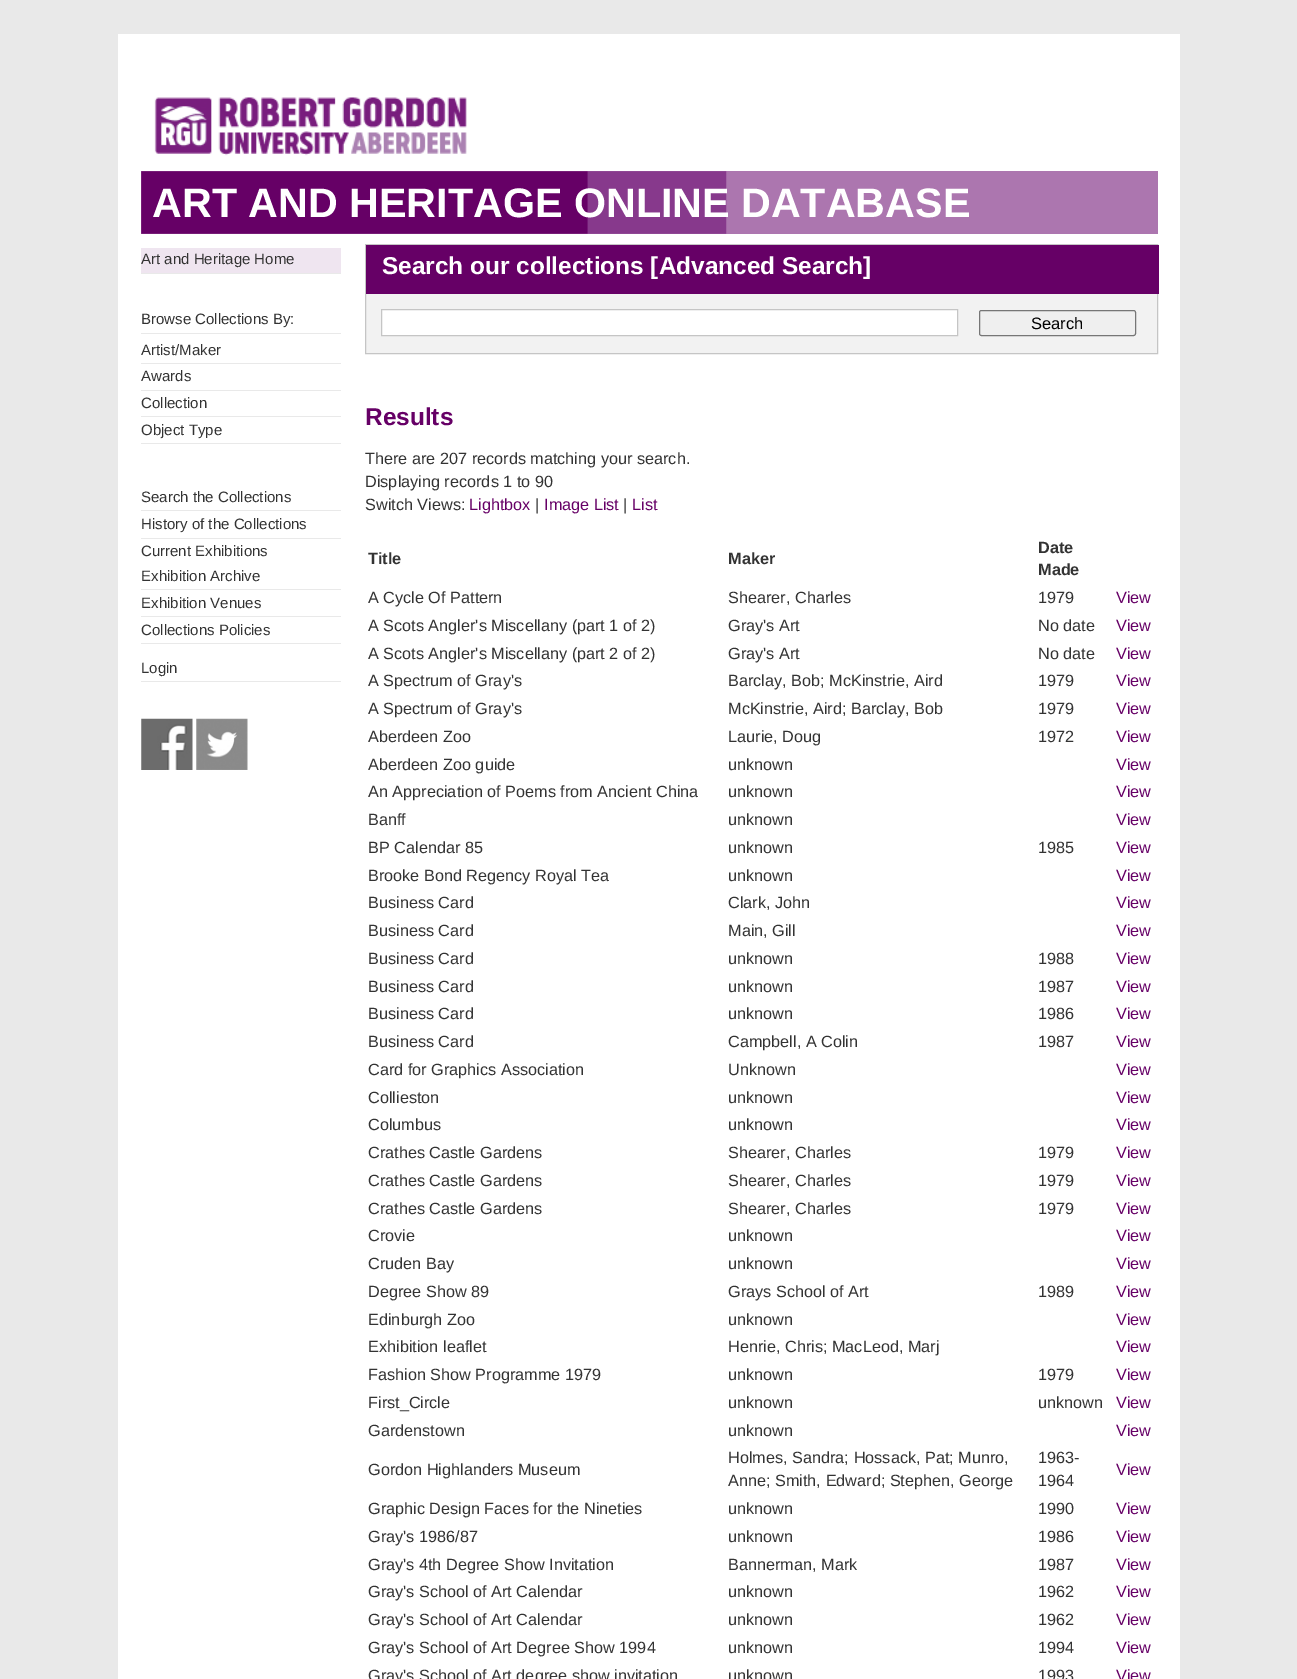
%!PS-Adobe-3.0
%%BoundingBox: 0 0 1297 1679
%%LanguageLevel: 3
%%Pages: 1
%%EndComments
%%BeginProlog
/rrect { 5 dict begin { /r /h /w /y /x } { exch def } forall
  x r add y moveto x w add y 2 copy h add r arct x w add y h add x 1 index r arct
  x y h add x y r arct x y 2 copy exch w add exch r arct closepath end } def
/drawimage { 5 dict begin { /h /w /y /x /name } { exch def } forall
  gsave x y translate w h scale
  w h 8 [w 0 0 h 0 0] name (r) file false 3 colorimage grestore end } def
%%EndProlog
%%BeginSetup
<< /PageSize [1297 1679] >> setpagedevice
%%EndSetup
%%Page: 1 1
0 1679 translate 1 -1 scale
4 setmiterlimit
0.914 setgray
0 0 1297 1679 rectfill
1 setgray
118 34 1062 1645 rectfill
(images/1.raw) 154 97 313 59 drawimage
0.675 0.463 0.686 setrgbcolor
141 171 1017 63 rectfill
(images/2.raw) 141 171 586 63 drawimage
0.914 setgray
141 273 200 1 rectfill
0.937 0.898 0.941 setrgbcolor
141 248 200 25 rectfill
0.914 setgray
141 333 200 1 rectfill
141 363 200 1 rectfill
141 390 200 1 rectfill
141 416 200 1 rectfill
141 443 200 1 rectfill
141 510 200 1 rectfill
141 538 200 1 rectfill
141 589 200 1 rectfill
141 616 200 1 rectfill
141 643 200 1 rectfill
141 681 200 1 rectfill
(images/3.raw) 141 718 52 52 drawimage
(images/4.raw) 196 718 52 52 drawimage
0.949 setgray
366 294 791 59 rectfill
0.773 setgray
365.5 244.5 792 109 rectstroke
0.4 0 0.4 setrgbcolor
366 245 793 49 rectfill
1 setgray
newpath 381.5 309.5 moveto 957.5 309.5 lineto 957.5 335.5 lineto 381.5 335.5 lineto closepath gsave fill grestore
0.773 setgray
stroke
0.937 setgray
979.5 310.5 156 25 2 rrect gsave fill grestore
0.463 setgray
stroke
/LiberationSans-Bold [41.25 0 0 -41.25 0 0] selectfont
1 setgray
152 217 moveto (ART AND HERITAGE ONLINE DATABASE) show
/LiberationSans-Regular [15 0 0 -15 0 0] selectfont
0.2 setgray
141 264 moveto (Art and Heritage Home) show
141 324 moveto (Browse Collections By:) show
141 355 moveto (Artist/Maker) show
141 381 moveto (Awards) show
141 408 moveto (Collection) show
141 435 moveto (Object Type) show
141 502 moveto (Search the Collections) show
141 529 moveto (History of the Collections) show
141 556 moveto (Current Exhibitions) show
141 581 moveto (Exhibition Archive) show
141 608 moveto (Exhibition Venues) show
141 635 moveto (Collections Policies) show
141 673 moveto (Login) show
/LiberationSans-Bold [24.4 0 0 -24.4 0 0] selectfont
1 setgray
382 274 moveto (Search our collections [Advanced Search]) show
/LiberationSans-Regular [16.5 0 0 -16.5 0 0] selectfont
0 setgray
1031 329 moveto (Search) show
/LiberationSans-Bold [24.4 0 0 -24.4 0 0] selectfont
0.4 0 0.4 setrgbcolor
365 425 moveto (Results) show
/LiberationSans-Regular [16.25 0 0 -16.25 0 0] selectfont
0.2 setgray
365 464 moveto (There are 207 records matching your search.) show
365 487 moveto (Displaying records 1 to 90) show
365 510 moveto (Switch Views:) show
0.4 0 0.4 setrgbcolor
469 510 moveto (Lightbox) show
0.2 setgray
535 510 moveto (|) show
0.4 0 0.4 setrgbcolor
544 510 moveto (Image List) show
0.2 setgray
623 510 moveto (|) show
0.4 0 0.4 setrgbcolor
632 510 moveto (List) show
/LiberationSans-Bold [16.25 0 0 -16.25 0 0] selectfont
0.2 setgray
368 564 moveto (Title) show
728 564 moveto (Maker) show
1038 553 moveto (Date) show
1038 575 moveto (Made) show
/LiberationSans-Regular [16.25 0 0 -16.25 0 0] selectfont
368 603 moveto (A Cycle Of Pattern) show
728 603 moveto (Shearer, Charles) show
1038 603 moveto (1979) show
0.4 0 0.4 setrgbcolor
1116 603 moveto (View) show
0.2 setgray
368 631 moveto (A Scots Angler's Miscellany \(part 1 of 2\)) show
728 631 moveto (Gray's Art) show
1038 631 moveto (No date) show
0.4 0 0.4 setrgbcolor
1116 631 moveto (View) show
0.2 setgray
368 659 moveto (A Scots Angler's Miscellany \(part 2 of 2\)) show
728 659 moveto (Gray's Art) show
1038 659 moveto (No date) show
0.4 0 0.4 setrgbcolor
1116 659 moveto (View) show
0.2 setgray
368 686 moveto (A Spectrum of Gray's) show
728 686 moveto (Barclay, Bob; McKinstrie, Aird) show
1038 686 moveto (1979) show
0.4 0 0.4 setrgbcolor
1116 686 moveto (View) show
0.2 setgray
368 714 moveto (A Spectrum of Gray's) show
728 714 moveto (McKinstrie, Aird; Barclay, Bob) show
1038 714 moveto (1979) show
0.4 0 0.4 setrgbcolor
1116 714 moveto (View) show
0.2 setgray
368 742 moveto (Aberdeen Zoo) show
728 742 moveto (Laurie, Doug) show
1038 742 moveto (1972) show
0.4 0 0.4 setrgbcolor
1116 742 moveto (View) show
0.2 setgray
368 770 moveto (Aberdeen Zoo guide) show
728 770 moveto (unknown) show
0.4 0 0.4 setrgbcolor
1116 770 moveto (View) show
0.2 setgray
368 797 moveto (An Appreciation of Poems from Ancient China) show
728 797 moveto (unknown) show
0.4 0 0.4 setrgbcolor
1116 797 moveto (View) show
0.2 setgray
368 825 moveto (Banff) show
728 825 moveto (unknown) show
0.4 0 0.4 setrgbcolor
1116 825 moveto (View) show
0.2 setgray
368 853 moveto (BP Calendar 85) show
728 853 moveto (unknown) show
1038 853 moveto (1985) show
0.4 0 0.4 setrgbcolor
1116 853 moveto (View) show
0.2 setgray
368 881 moveto (Brooke Bond Regency Royal Tea) show
728 881 moveto (unknown) show
0.4 0 0.4 setrgbcolor
1116 881 moveto (View) show
0.2 setgray
368 908 moveto (Business Card) show
728 908 moveto (Clark, John) show
0.4 0 0.4 setrgbcolor
1116 908 moveto (View) show
0.2 setgray
368 936 moveto (Business Card) show
728 936 moveto (Main, Gill) show
0.4 0 0.4 setrgbcolor
1116 936 moveto (View) show
0.2 setgray
368 964 moveto (Business Card) show
728 964 moveto (unknown) show
1038 964 moveto (1988) show
0.4 0 0.4 setrgbcolor
1116 964 moveto (View) show
0.2 setgray
368 992 moveto (Business Card) show
728 992 moveto (unknown) show
1038 992 moveto (1987) show
0.4 0 0.4 setrgbcolor
1116 992 moveto (View) show
0.2 setgray
368 1019 moveto (Business Card) show
728 1019 moveto (unknown) show
1038 1019 moveto (1986) show
0.4 0 0.4 setrgbcolor
1116 1019 moveto (View) show
0.2 setgray
368 1047 moveto (Business Card) show
728 1047 moveto (Campbell, A Colin) show
1038 1047 moveto (1987) show
0.4 0 0.4 setrgbcolor
1116 1047 moveto (View) show
0.2 setgray
368 1075 moveto (Card for Graphics Association) show
728 1075 moveto (Unknown) show
0.4 0 0.4 setrgbcolor
1116 1075 moveto (View) show
0.2 setgray
368 1103 moveto (Collieston) show
728 1103 moveto (unknown) show
0.4 0 0.4 setrgbcolor
1116 1103 moveto (View) show
0.2 setgray
368 1130 moveto (Columbus) show
728 1130 moveto (unknown) show
0.4 0 0.4 setrgbcolor
1116 1130 moveto (View) show
0.2 setgray
368 1158 moveto (Crathes Castle Gardens) show
728 1158 moveto (Shearer, Charles) show
1038 1158 moveto (1979) show
0.4 0 0.4 setrgbcolor
1116 1158 moveto (View) show
0.2 setgray
368 1186 moveto (Crathes Castle Gardens) show
728 1186 moveto (Shearer, Charles) show
1038 1186 moveto (1979) show
0.4 0 0.4 setrgbcolor
1116 1186 moveto (View) show
0.2 setgray
368 1214 moveto (Crathes Castle Gardens) show
728 1214 moveto (Shearer, Charles) show
1038 1214 moveto (1979) show
0.4 0 0.4 setrgbcolor
1116 1214 moveto (View) show
0.2 setgray
368 1241 moveto (Crovie) show
728 1241 moveto (unknown) show
0.4 0 0.4 setrgbcolor
1116 1241 moveto (View) show
0.2 setgray
368 1269 moveto (Cruden Bay) show
728 1269 moveto (unknown) show
0.4 0 0.4 setrgbcolor
1116 1269 moveto (View) show
0.2 setgray
368 1297 moveto (Degree Show 89) show
728 1297 moveto (Grays School of Art) show
1038 1297 moveto (1989) show
0.4 0 0.4 setrgbcolor
1116 1297 moveto (View) show
0.2 setgray
368 1325 moveto (Edinburgh Zoo) show
728 1325 moveto (unknown) show
0.4 0 0.4 setrgbcolor
1116 1325 moveto (View) show
0.2 setgray
368 1352 moveto (Exhibition leaflet) show
728 1352 moveto (Henrie, Chris; MacLeod, Marj) show
0.4 0 0.4 setrgbcolor
1116 1352 moveto (View) show
0.2 setgray
368 1380 moveto (Fashion Show Programme 1979) show
728 1380 moveto (unknown) show
1038 1380 moveto (1979) show
0.4 0 0.4 setrgbcolor
1116 1380 moveto (View) show
0.2 setgray
368 1408 moveto (First_Circle) show
728 1408 moveto (unknown) show
1038 1408 moveto (unknown) show
0.4 0 0.4 setrgbcolor
1116 1408 moveto (View) show
0.2 setgray
368 1436 moveto (Gardenstown) show
728 1436 moveto (unknown) show
0.4 0 0.4 setrgbcolor
1116 1436 moveto (View) show
0.2 setgray
368 1475 moveto (Gordon Highlanders Museum) show
728 1463 moveto (Holmes, Sandra; Hossack, Pat; Munro,) show
728 1486 moveto (Anne; Smith, Edward; Stephen, George) show
1038 1463 moveto (1963-) show
1038 1486 moveto (1964) show
0.4 0 0.4 setrgbcolor
1116 1475 moveto (View) show
0.2 setgray
368 1514 moveto (Graphic Design Faces for the Nineties) show
728 1514 moveto (unknown) show
1038 1514 moveto (1990) show
0.4 0 0.4 setrgbcolor
1116 1514 moveto (View) show
0.2 setgray
368 1542 moveto (Gray's 1986/87) show
728 1542 moveto (unknown) show
1038 1542 moveto (1986) show
0.4 0 0.4 setrgbcolor
1116 1542 moveto (View) show
0.2 setgray
368 1570 moveto (Gray's 4th Degree Show Invitation) show
728 1570 moveto (Bannerman, Mark) show
1038 1570 moveto (1987) show
0.4 0 0.4 setrgbcolor
1116 1570 moveto (View) show
0.2 setgray
368 1597 moveto (Gray's School of Art Calendar) show
728 1597 moveto (unknown) show
1038 1597 moveto (1962) show
0.4 0 0.4 setrgbcolor
1116 1597 moveto (View) show
0.2 setgray
368 1625 moveto (Gray's School of Art Calendar) show
728 1625 moveto (unknown) show
1038 1625 moveto (1962) show
0.4 0 0.4 setrgbcolor
1116 1625 moveto (View) show
0.2 setgray
368 1653 moveto (Gray's School of Art Degree Show 1994) show
728 1653 moveto (unknown) show
1038 1653 moveto (1994) show
0.4 0 0.4 setrgbcolor
1116 1653 moveto (View) show
0.2 setgray
368 1681 moveto (Gray's School of Art degree show invitation) show
728 1681 moveto (unknown) show
1038 1681 moveto (1993) show
0.4 0 0.4 setrgbcolor
1116 1681 moveto (View) show
showpage
%%EOF
